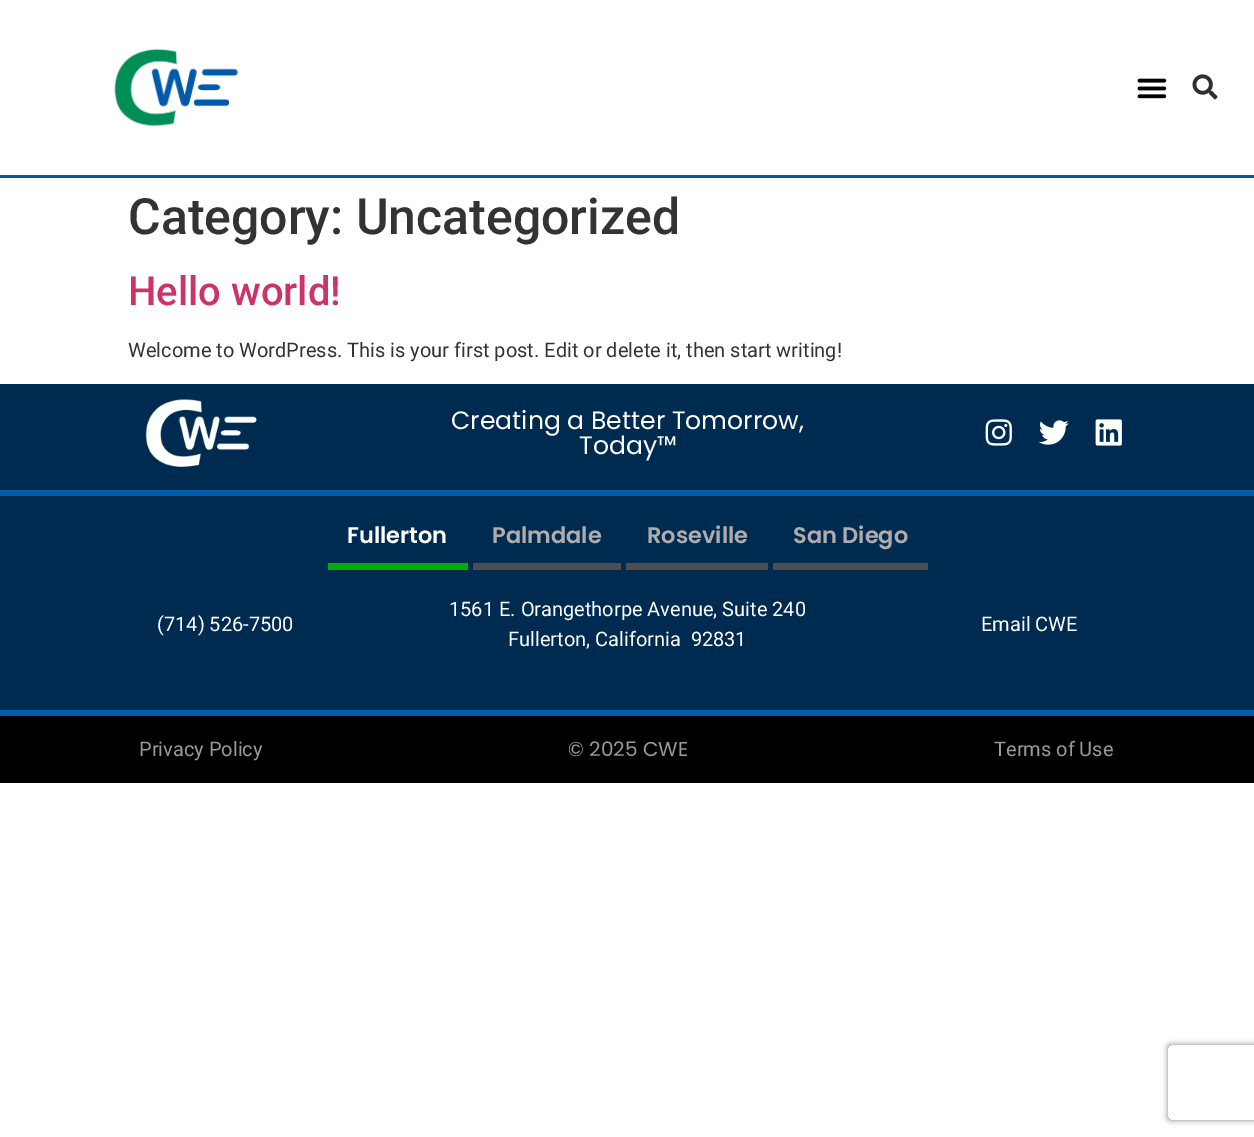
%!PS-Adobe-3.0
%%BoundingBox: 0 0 1254 1137
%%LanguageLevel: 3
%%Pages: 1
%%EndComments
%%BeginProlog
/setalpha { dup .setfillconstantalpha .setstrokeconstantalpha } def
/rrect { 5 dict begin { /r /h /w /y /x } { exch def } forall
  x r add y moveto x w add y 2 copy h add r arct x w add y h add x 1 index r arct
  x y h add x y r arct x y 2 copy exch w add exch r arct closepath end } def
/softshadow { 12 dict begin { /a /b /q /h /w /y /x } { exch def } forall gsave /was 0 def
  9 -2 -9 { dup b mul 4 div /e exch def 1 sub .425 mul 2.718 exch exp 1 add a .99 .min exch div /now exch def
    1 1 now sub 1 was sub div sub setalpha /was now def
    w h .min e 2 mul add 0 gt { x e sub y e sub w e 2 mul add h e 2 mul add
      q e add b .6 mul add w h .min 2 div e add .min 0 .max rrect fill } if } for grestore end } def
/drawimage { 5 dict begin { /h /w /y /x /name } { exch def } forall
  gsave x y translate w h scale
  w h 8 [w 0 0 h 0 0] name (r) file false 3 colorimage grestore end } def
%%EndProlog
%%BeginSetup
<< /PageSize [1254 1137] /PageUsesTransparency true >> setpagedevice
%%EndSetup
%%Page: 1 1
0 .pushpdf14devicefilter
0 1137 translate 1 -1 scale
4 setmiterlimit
1 setgray
0 0 1254 1137 rectfill
0 0.357 0.667 setrgbcolor
0 175 1254 3 rectfill
(images/1.raw) 114 48 124 79 drawimage
(images/2.raw) 1137 78 30 21 drawimage
(images/3.raw) 1192 74 26 26 drawimage
0 0.169 0.318 setrgbcolor
0 384 1254 326 rectfill
(images/4.raw) 145 399 112 68 drawimage
(images/5.raw) 985 419 27 27 drawimage
(images/6.raw) 1039 420 30 25 drawimage
(images/7.raw) 1095 419 27 27 drawimage
0 0.357 0.671 setrgbcolor
0 490 1254 6 rectfill
0 710 1254 6 rectfill
0 0.671 0.024 setrgbcolor
328 563 140 7 rectfill
0.306 setgray
473 563 148 7 rectfill
626 563 142 7 rectfill
773 563 155 7 rectfill
0 setgray
0 716 1254 67 rectfill
gsave
newpath 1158 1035 moveto 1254 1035 lineto 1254 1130 lineto 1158 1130 lineto closepath 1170.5 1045 moveto 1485.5 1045 lineto 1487 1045 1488 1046 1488 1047.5 curveto 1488 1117.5 lineto 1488 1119 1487 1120 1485.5 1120 curveto 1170.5 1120 lineto 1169 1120 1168 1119 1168 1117.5 curveto 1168 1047.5 lineto 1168 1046 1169 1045 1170.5 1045 curveto closepath eoclip newpath
0.502 setgray
1168 1045 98 75 2.5 3 1 softshadow
grestore
/Roboto-Medium [50 0 0 -50 0 0] selectfont
0.2 setgray
128 234 moveto (Category: Uncategorized) show
/Roboto-Medium [40 0 0 -40 0 0] selectfont
0.8 0.2 0.4 setrgbcolor
128 305 moveto (Hello world!) show
/Roboto-Regular [20 0 0 -20 0 0] selectfont
0.2 setgray
128 357 moveto (Welcome to WordPress. This is your first post. Edit or delete it, then start writing!) show
/Poppins-Regular [25.1 0 0 -25.1 0 0] selectfont
1 setgray
451 429 moveto (Creating a Better Tomorrow,) show
579 454 moveto (Today™) show
/Poppins-SemiBold [22.5 0 0 -22.5 0 0] selectfont
347 543 moveto (Fullerton) show
0.69 0.675 0.675 setrgbcolor
492 543 moveto (Palmdale) show
647 543 moveto (Roseville) show
793 543 moveto (San Diego) show
/Roboto-Regular [20 0 0 -20 0 0] selectfont
1 setgray
157 631 moveto (\(714\) 526-7500) show
449 616 moveto (1561 E. Orangethorpe Avenue, Suite 240) show
508 646 moveto (Fullerton, California  92831) show
981 631 moveto (Email CWE) show
0.6 setgray
139 756 moveto (Privacy Policy) show
/Poppins-Regular [20 0 0 -20 0 0] selectfont
568 756 moveto (© 2025 CWE) show
/Roboto-Regular [20 0 0 -20 0 0] selectfont
994 756 moveto (Terms of Use) show
.poppdf14devicefilter showpage
%%EOF
